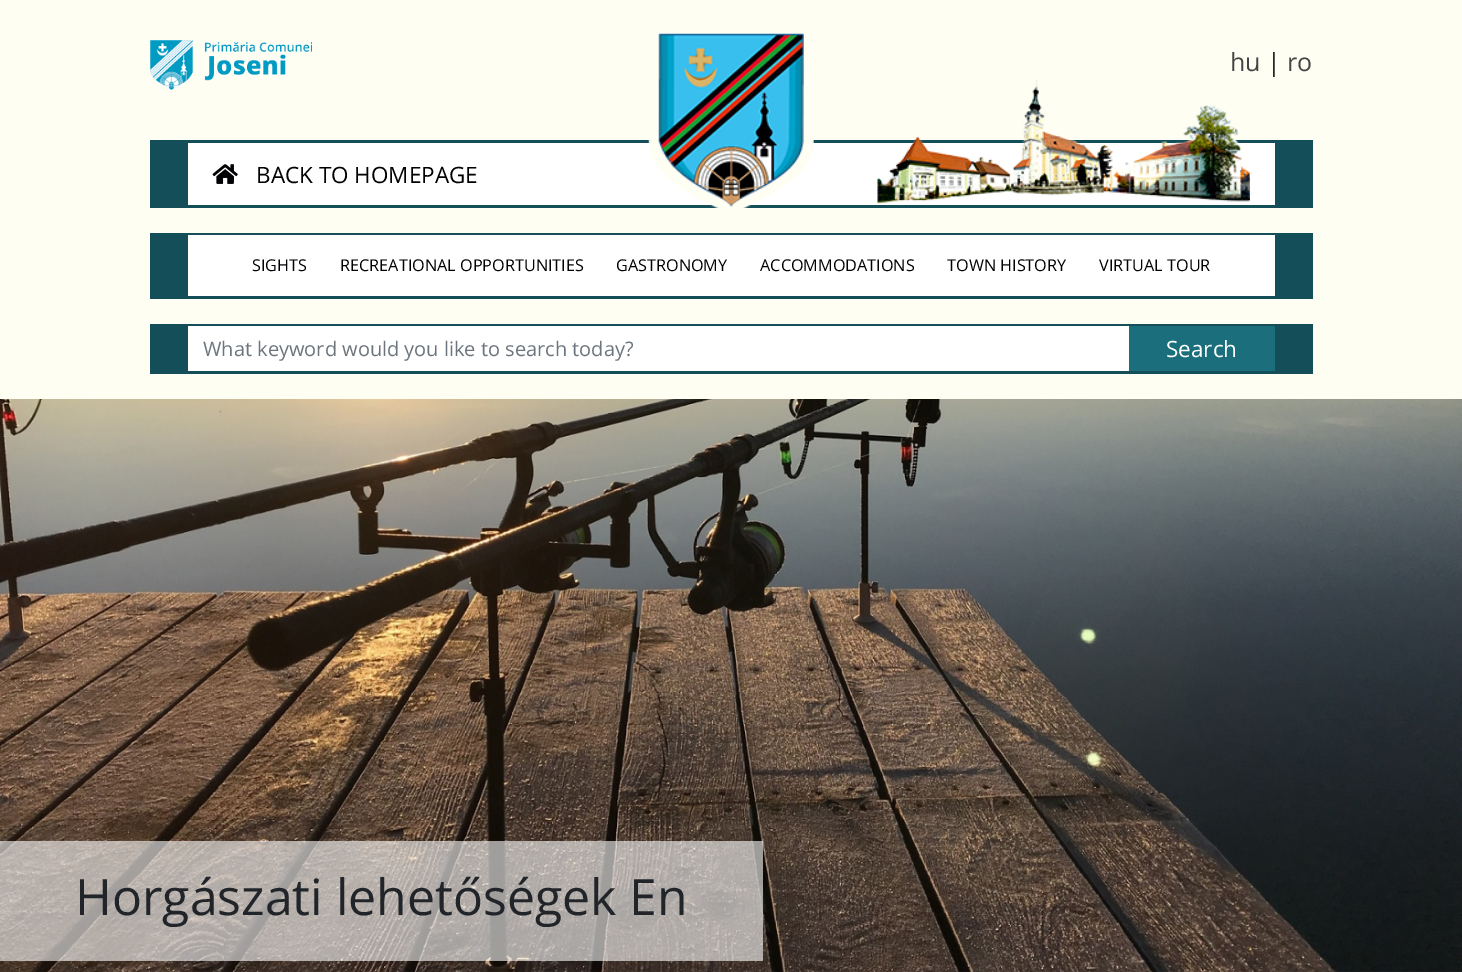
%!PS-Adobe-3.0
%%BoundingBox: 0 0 1462 972
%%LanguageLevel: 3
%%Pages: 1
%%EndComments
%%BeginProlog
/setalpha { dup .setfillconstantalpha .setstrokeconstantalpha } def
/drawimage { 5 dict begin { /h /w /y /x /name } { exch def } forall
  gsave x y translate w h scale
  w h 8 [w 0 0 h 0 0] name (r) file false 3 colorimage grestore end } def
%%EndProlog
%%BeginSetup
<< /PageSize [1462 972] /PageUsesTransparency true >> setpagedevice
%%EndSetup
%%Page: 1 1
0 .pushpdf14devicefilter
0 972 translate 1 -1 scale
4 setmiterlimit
1 0.996 0.953 setrgbcolor
0 0 1462 972 rectfill
(images/1.raw) 150 40 162 50 drawimage
0.078 0.31 0.349 setrgbcolor
150 140 1163 68 rectfill
1 setgray
188 143 1087 62 rectfill
(images/2.raw) 212 164 26 20 drawimage
(images/3.raw) 877 80 373 124 drawimage
(images/4.raw) 648 33 166 175 drawimage
0.078 0.31 0.349 setrgbcolor
150 233 1163 66 rectfill
1 setgray
188 235 1087 61 rectfill
0.078 0.31 0.349 setrgbcolor
150 324 1163 50 rectfill
1 setgray
188 326 941 45 rectfill
0.106 0.431 0.486 setrgbcolor
1129 326 146 45 rectfill
(images/5.raw) 0 399 1462 573 drawimage
0.6 setalpha
1 setgray
0 841 763 120 rectfill
/OpenSans-Regular [25 0 0 -25 0 0] selectfont
1 setalpha
0.267 setgray
1230 71 moveto (hu) show
0.129 0.145 0.161 setrgbcolor
1267 71 moveto (|) show
0.267 setgray
1287 71 moveto (ro) show
/OpenSans-Regular [22.5 0 0 -22.5 0 0] selectfont
0 0 0.012 setrgbcolor
256 183 moveto (BACK TO HOMEPAGE) show
/OpenSans-Regular [16.25 0 0 -16.25 0 0] selectfont
252 271 moveto (SIGHTS) show
340 271 moveto (RECREATIONAL OPPORTUNITIES) show
616 271 moveto (GASTRONOMY) show
760 271 moveto (ACCOMMODATIONS) show
947 271 moveto (TOWN HISTORY) show
1099 271 moveto (VIRTUAL TOUR) show
/OpenSans-Regular [20 0 0 -20 0 0] selectfont
0.424 0.459 0.49 setrgbcolor
203 356 moveto (What keyword would you like to search today?) show
/OpenSans-Regular [22.5 0 0 -22.5 0 0] selectfont
1 setgray
1166 357 moveto (Search) show
/OpenSans-Regular [50 0 0 -50 0 0] selectfont
0.129 0.145 0.161 setrgbcolor
75 915 moveto (Horgászati lehetőségek En) show
.poppdf14devicefilter showpage
%%EOF
